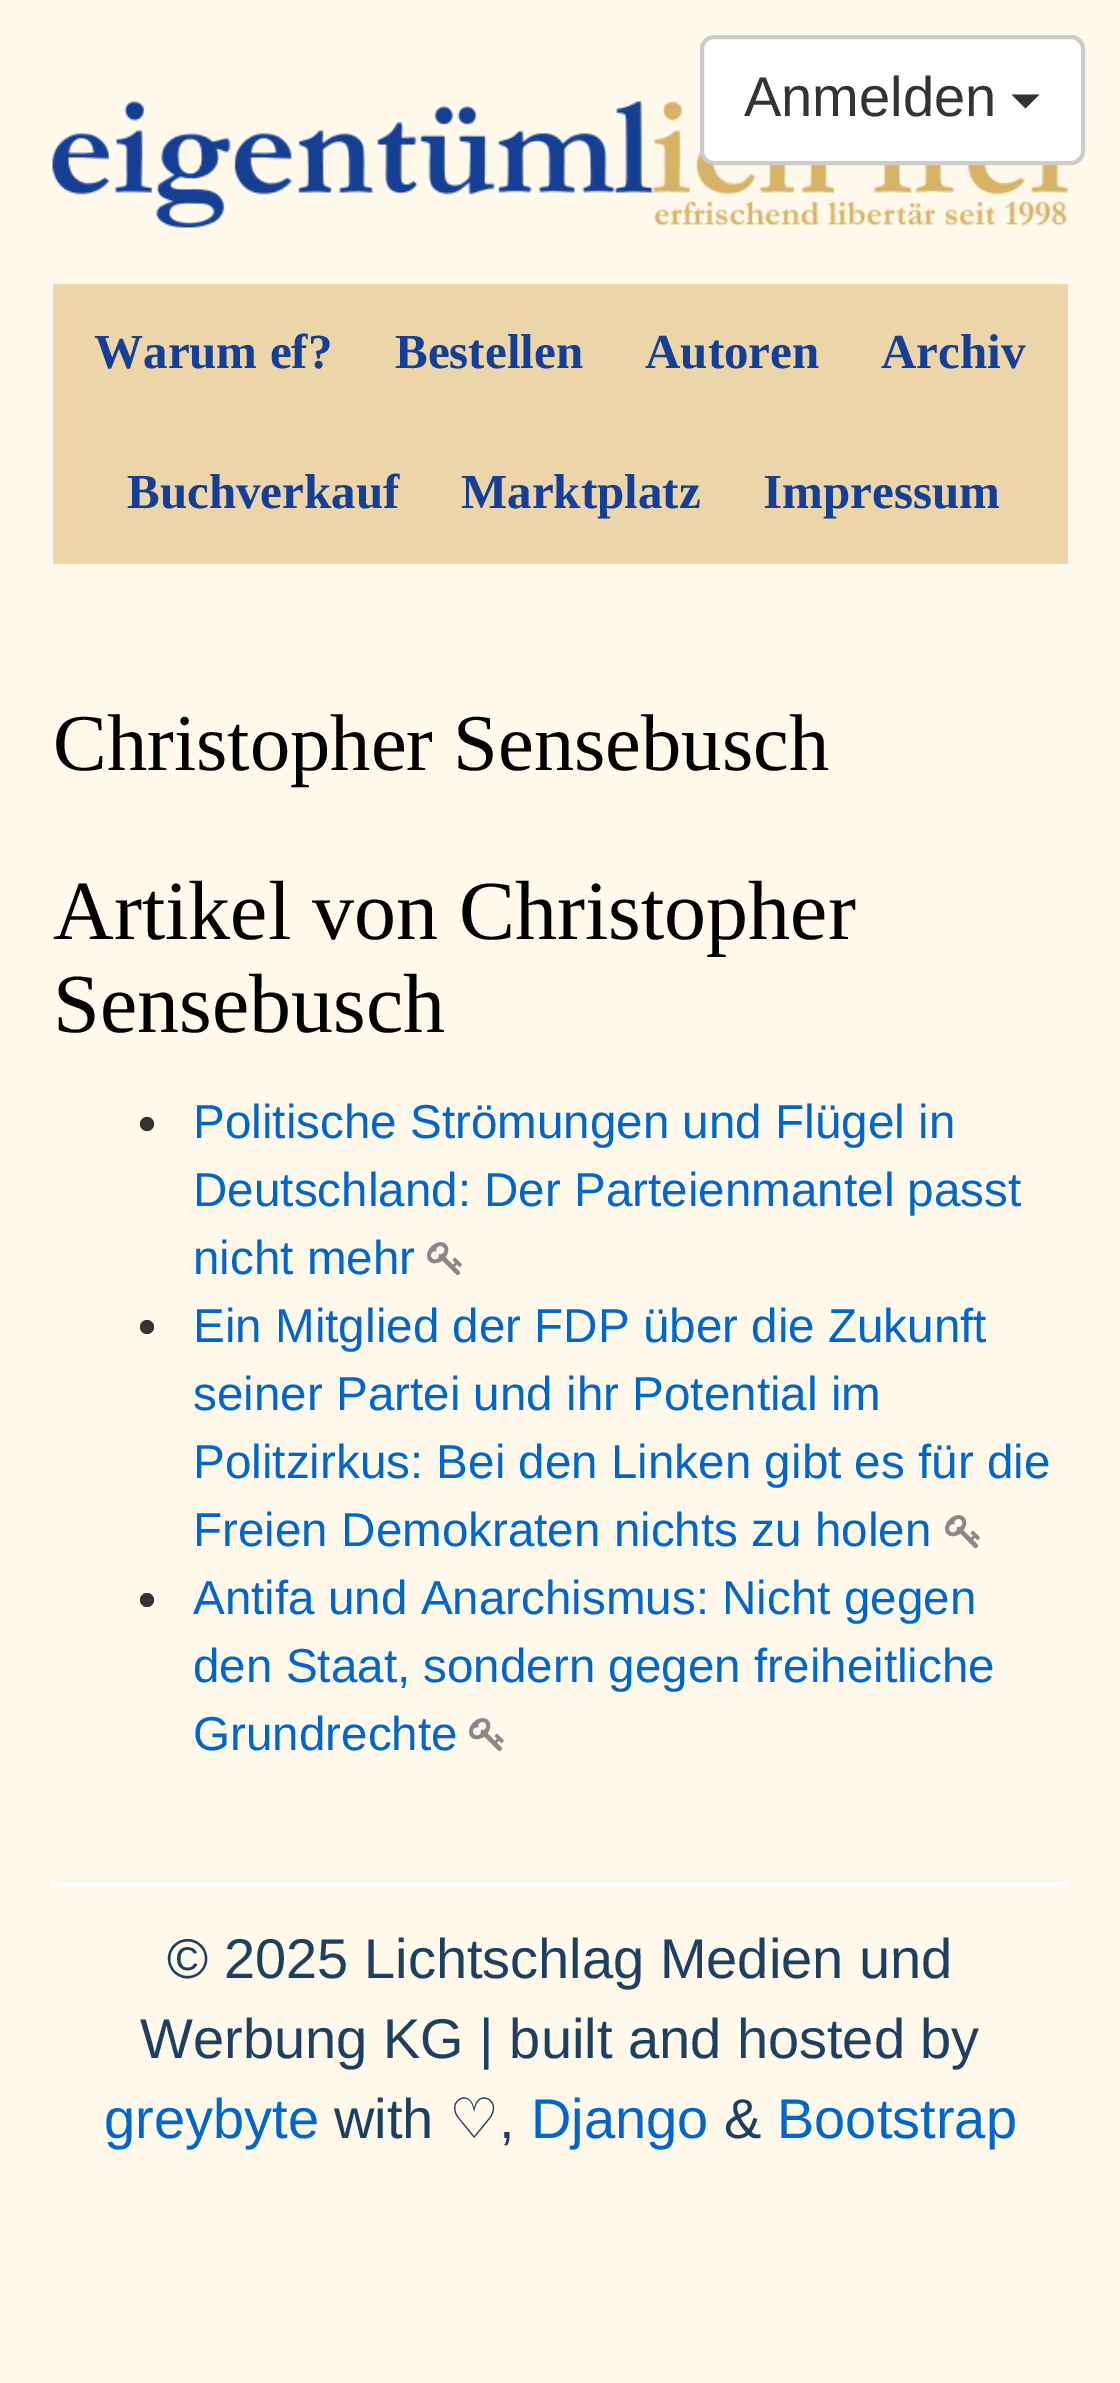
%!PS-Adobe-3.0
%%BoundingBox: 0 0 1120 2383
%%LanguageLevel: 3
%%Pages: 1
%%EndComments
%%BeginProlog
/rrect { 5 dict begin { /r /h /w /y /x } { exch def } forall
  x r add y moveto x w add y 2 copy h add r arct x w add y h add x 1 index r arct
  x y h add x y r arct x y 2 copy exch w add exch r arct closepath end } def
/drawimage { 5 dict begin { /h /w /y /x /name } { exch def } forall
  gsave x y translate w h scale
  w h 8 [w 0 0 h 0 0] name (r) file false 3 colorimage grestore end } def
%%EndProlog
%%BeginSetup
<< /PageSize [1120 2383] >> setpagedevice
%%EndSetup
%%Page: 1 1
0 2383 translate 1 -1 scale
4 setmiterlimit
1 0.976 0.925 setrgbcolor
0 0 1120 2383 rectfill
(images/1.raw) 52 101 1016 127 drawimage
1 setgray
702 37 381 126 12 rrect gsave fill grestore
0.8 setgray
4 setlinewidth
stroke
0.2 setgray
newpath 1011.5 94.5 moveto 1039.5 94.5 lineto 1025.5 108.5 lineto closepath fill
0.922 0.835 0.663 setrgbcolor
53 284 1015 280 rectfill
0.2 setgray
newpath 147 1124 7 0 360 arc closepath fill
(images/2.raw) 427 1242 35 34 drawimage
newpath 147 1327 7 0 360 arc closepath fill
(images/2.raw) 945 1515 35 34 drawimage
newpath 147 1600 7 0 360 arc closepath fill
(images/2.raw) 469 1718 35 34 drawimage
0.992 0.996 1 setrgbcolor
53 1883 1015 4 rectfill
/LiberationSans-Regular [56 0 0 -56 0 0] selectfont
0.2 setgray
744 116 moveto (Anmelden) show
/LiberationSerif-Bold [49 0 0 -49 0 0] selectfont
0.078 0.247 0.58 setrgbcolor
94 368 moveto (Warum ef?) show
395 368 moveto (Bestellen) show
645 368 moveto (Autoren) show
881 368 moveto (Archiv) show
127 508 moveto (Buchverkauf) show
461 508 moveto (Marktplatz) show
763 508 moveto (Impressum) show
/LiberationSerif-Regular [80.5 0 0 -80.5 0 0] selectfont
0 setgray
53 770 moveto (Christopher Sensebusch) show
/LiberationSerif-Regular [84 0 0 -84 0 0] selectfont
53 939 moveto (Artikel von Christopher) show
53 1032 moveto (Sensebusch) show
/LiberationSans-Regular [47.6 0 0 -47.6 0 0] selectfont
0 0.4 0.8 setrgbcolor
193 1138 moveto (Politische Strömungen und Flügel in) show
193 1206 moveto (Deutschland: Der Parteienmantel passt) show
193 1274 moveto (nicht mehr) show
193 1342 moveto (Ein Mitglied der FDP über die Zukunft) show
193 1410 moveto (seiner Partei und ihr Potential im) show
193 1478 moveto (Politzirkus: Bei den Linken gibt es für die) show
193 1546 moveto (Freien Demokraten nichts zu holen) show
193 1614 moveto (Antifa und Anarchismus: Nicht gegen) show
193 1682 moveto (den Staat, sondern gegen freiheitliche) show
193 1750 moveto (Grundrechte) show
/LiberationSans-Regular [56 0 0 -56 0 0] selectfont
0.118 0.247 0.376 setrgbcolor
167 1978 moveto (© 2025 Lichtschlag Medien und) show
140 2058 moveto (Werbung KG | built and hosted by) show
0 0.4 0.8 setrgbcolor
104 2138 moveto (greybyte) show
0.118 0.247 0.376 setrgbcolor
334 2138 moveto (with) show
/DejaVuSans-Regular [56 0 0 -56 0 0] selectfont
449 2138 moveto (♡) show
/LiberationSans-Regular [56 0 0 -56 0 0] selectfont
499 2138 moveto (,) show
0 0.4 0.8 setrgbcolor
531 2138 moveto (Django) show
0.118 0.247 0.376 setrgbcolor
724 2138 moveto (&) show
0 0.4 0.8 setrgbcolor
777 2138 moveto (Bootstrap) show
showpage
%%EOF
